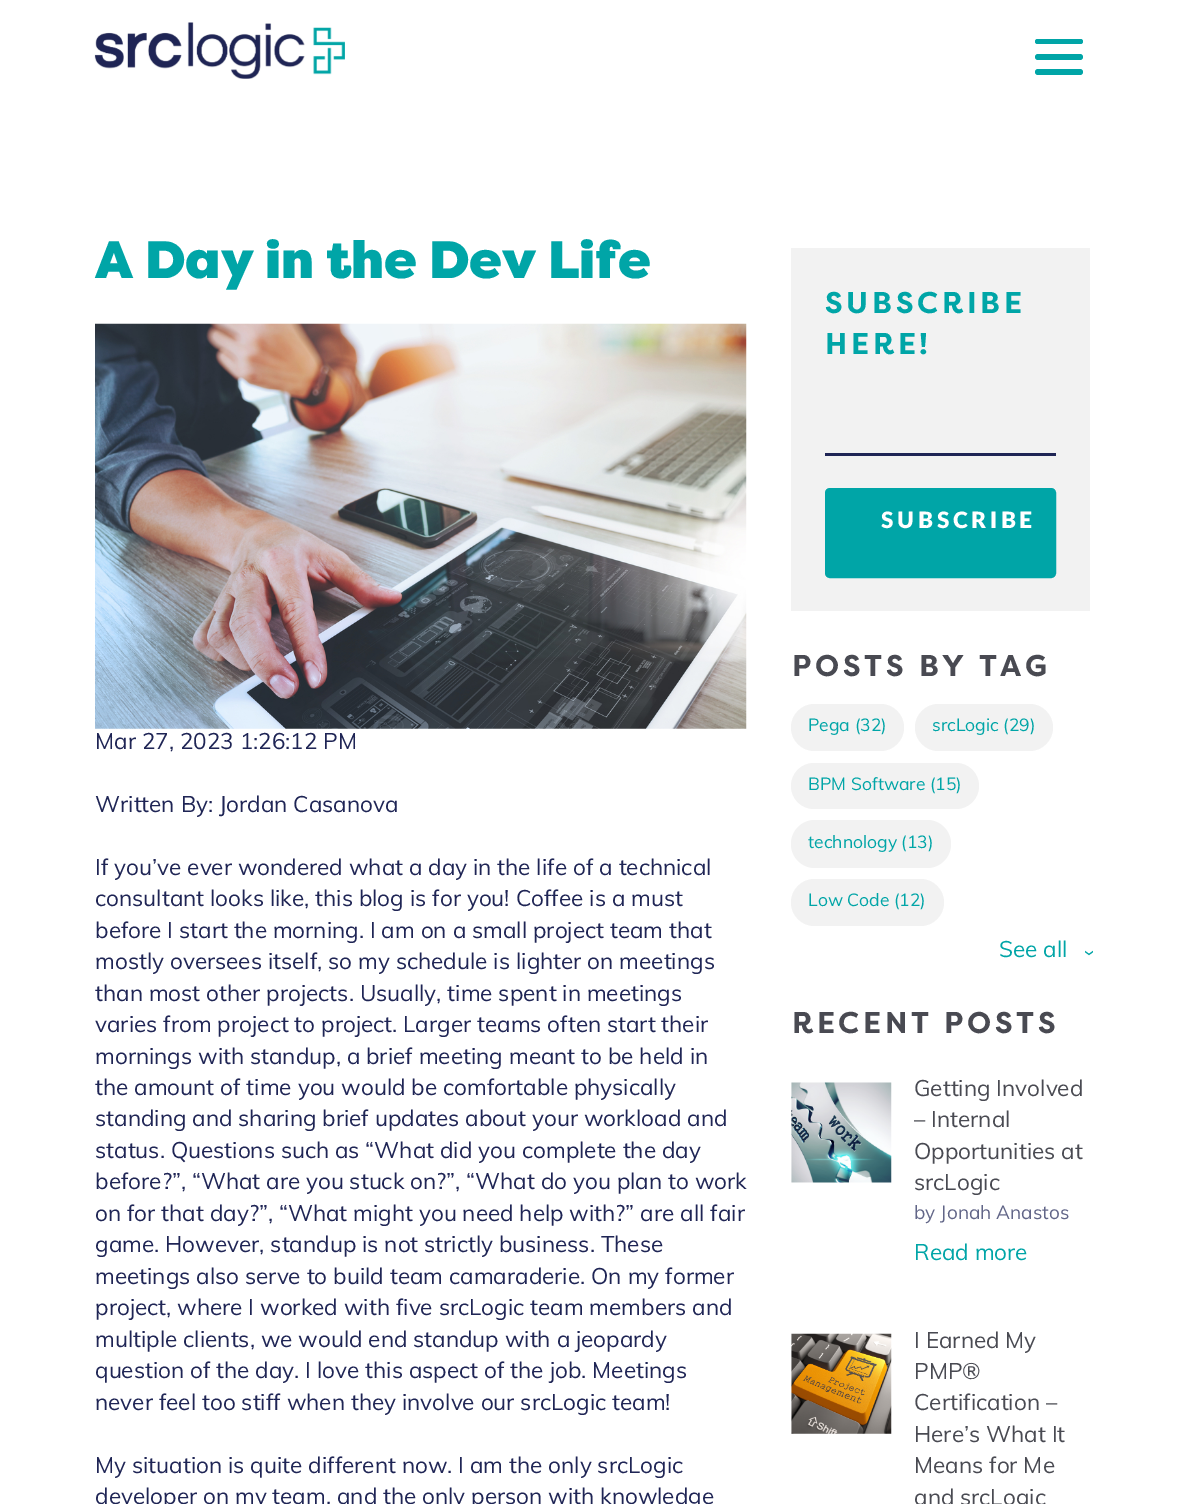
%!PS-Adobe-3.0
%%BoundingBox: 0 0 1185 1504
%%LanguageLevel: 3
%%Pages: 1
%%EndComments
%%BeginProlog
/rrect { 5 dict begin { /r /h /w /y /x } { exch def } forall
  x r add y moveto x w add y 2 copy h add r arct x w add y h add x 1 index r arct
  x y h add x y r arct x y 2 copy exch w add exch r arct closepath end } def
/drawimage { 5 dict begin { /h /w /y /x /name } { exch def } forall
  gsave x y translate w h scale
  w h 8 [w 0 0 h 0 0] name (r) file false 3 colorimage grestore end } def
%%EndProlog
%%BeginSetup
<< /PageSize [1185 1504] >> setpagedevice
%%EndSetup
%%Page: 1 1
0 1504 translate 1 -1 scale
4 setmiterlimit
1 setgray
0 0 1185 1504 rectfill
(images/1.raw) 94 22 251 57 drawimage
0 0.647 0.655 setrgbcolor
1035 39 48 5 2.5 rrect fill
1035 54 48 6 3 rrect fill
1035 69 48 6 3 rrect fill
(images/2.raw) 95 323 652 406 drawimage
0.949 setgray
791 248 299 363 rectfill
0.122 0.145 0.333 setrgbcolor
825 453 231 3 rectfill
0 0.647 0.655 setrgbcolor
826.5 489.5 228 87 3.5 rrect gsave fill grestore
3 setlinewidth
stroke
0.949 setgray
791 704 113 47 23.5 rrect fill
915 704 138 47 23.5 rrect fill
791 763 188 46 23 rrect fill
791 820 160 48 24 rrect fill
791 879 153 47 23.5 rrect fill
(images/3.raw) 791 1082 101 101 drawimage
(images/4.raw) 791 1333 101 101 drawimage
/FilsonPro-Black [52.5 0 0 -52.5 0 0] selectfont
0 0.647 0.655 setrgbcolor
95 278 moveto (A Day in the Dev Life) show
/Muli-Regular [22.5 0 0 -22.5 0 0] selectfont
0.122 0.145 0.333 setrgbcolor
95 749 moveto (Mar 27, 2023 1:26:12 PM) show
95 812 moveto (Written By: Jordan Casanova) show
95 875 moveto (If you’ve ever wondered what a day in the life of a technical) show
95 906 moveto (consultant looks like, this blog is for you! Coffee is a must) show
95 938 moveto (before I start the morning. I am on a small project team that) show
95 969 moveto (mostly oversees itself, so my schedule is lighter on meetings) show
95 1001 moveto (than most other projects. Usually, time spent in meetings) show
95 1032 moveto (varies from project to project. Larger teams often start their) show
95 1064 moveto (mornings with standup, a brief meeting meant to be held in) show
95 1095 moveto (the amount of time you would be comfortable physically) show
95 1126 moveto (standing and sharing brief updates about your workload and) show
95 1158 moveto (status. Questions such as “What did you complete the day) show
95 1189 moveto (before?”, “What are you stuck on?”, “What do you plan to work) show
95 1221 moveto (on for that day?”, “What might you need help with?” are all fair) show
95 1252 moveto (game. However, standup is not strictly business. These) show
95 1284 moveto (meetings also serve to build team camaraderie. On my former) show
95 1315 moveto (project, where I worked with five srcLogic team members and) show
95 1347 moveto (multiple clients, we would end standup with a jeopardy) show
95 1378 moveto (question of the day. I love this aspect of the job. Meetings) show
95 1410 moveto (never feel too stiff when they involve our srcLogic team!) show
95 1473 moveto (My situation is quite different now. I am the only srcLogic) show
95 1504 moveto (developer on my team, and the only person with knowledge) show
/FilsonPro-Bold [30 0 0 -30 0 0] selectfont
0 0.647 0.655 setrgbcolor
825 313 moveto 3.75 0 (SUBSCRIBE) ashow
825 354 moveto 3.75 0 (HERE!) ashow
/Lato-ExtraBold [22.5 0 0 -22.5 0 0] selectfont
1 setgray
881 528 moveto 3.75 0 (SUBSCRIBE) ashow
/FilsonPro-Bold [30 0 0 -30 0 0] selectfont
0.286 0.29 0.322 setrgbcolor
792 676 moveto 3.75 0 (POSTS BY TAG) ashow
/Muli-Regular [17.5 0 0 -17.5 0 0] selectfont
0 0.647 0.655 setrgbcolor
808 731 moveto (Pega \(32\)) show
932 731 moveto (srcLogic \(29\)) show
808 790 moveto (BPM Software \(15\)) show
808 848 moveto (technology \(13\)) show
808 906 moveto (Low Code \(12\)) show
/Muli-Regular [22.5 0 0 -22.5 0 0] selectfont
999 957 moveto (See all) show
gsave 1083 950 translate 90 rotate 0 0 moveto (›) show grestore
/FilsonPro-Bold [30 0 0 -30 0 0] selectfont
0.286 0.29 0.322 setrgbcolor
792 1033 moveto 3.75 0 (RECENT POSTS) ashow
/Muli-Regular [22.5 0 0 -22.5 0 0] selectfont
914 1096 moveto (Getting Involved) show
914 1127 moveto (– Internal) show
914 1159 moveto (Opportunities at) show
914 1190 moveto (srcLogic) show
/Muli-Regular [19 0 0 -19 0 0] selectfont
0.384 0.4 0.533 setrgbcolor
914 1219 moveto (by Jonah Anastos) show
/Muli-Regular [22.5 0 0 -22.5 0 0] selectfont
0 0.647 0.655 setrgbcolor
914 1260 moveto (Read more) show
0.286 0.29 0.322 setrgbcolor
914 1348 moveto (I Earned My) show
914 1379 moveto (PMP®) show
914 1410 moveto (Certification –) show
914 1442 moveto (Here’s What It) show
914 1473 moveto (Means for Me) show
914 1505 moveto (and srcLogic) show
showpage
%%EOF
